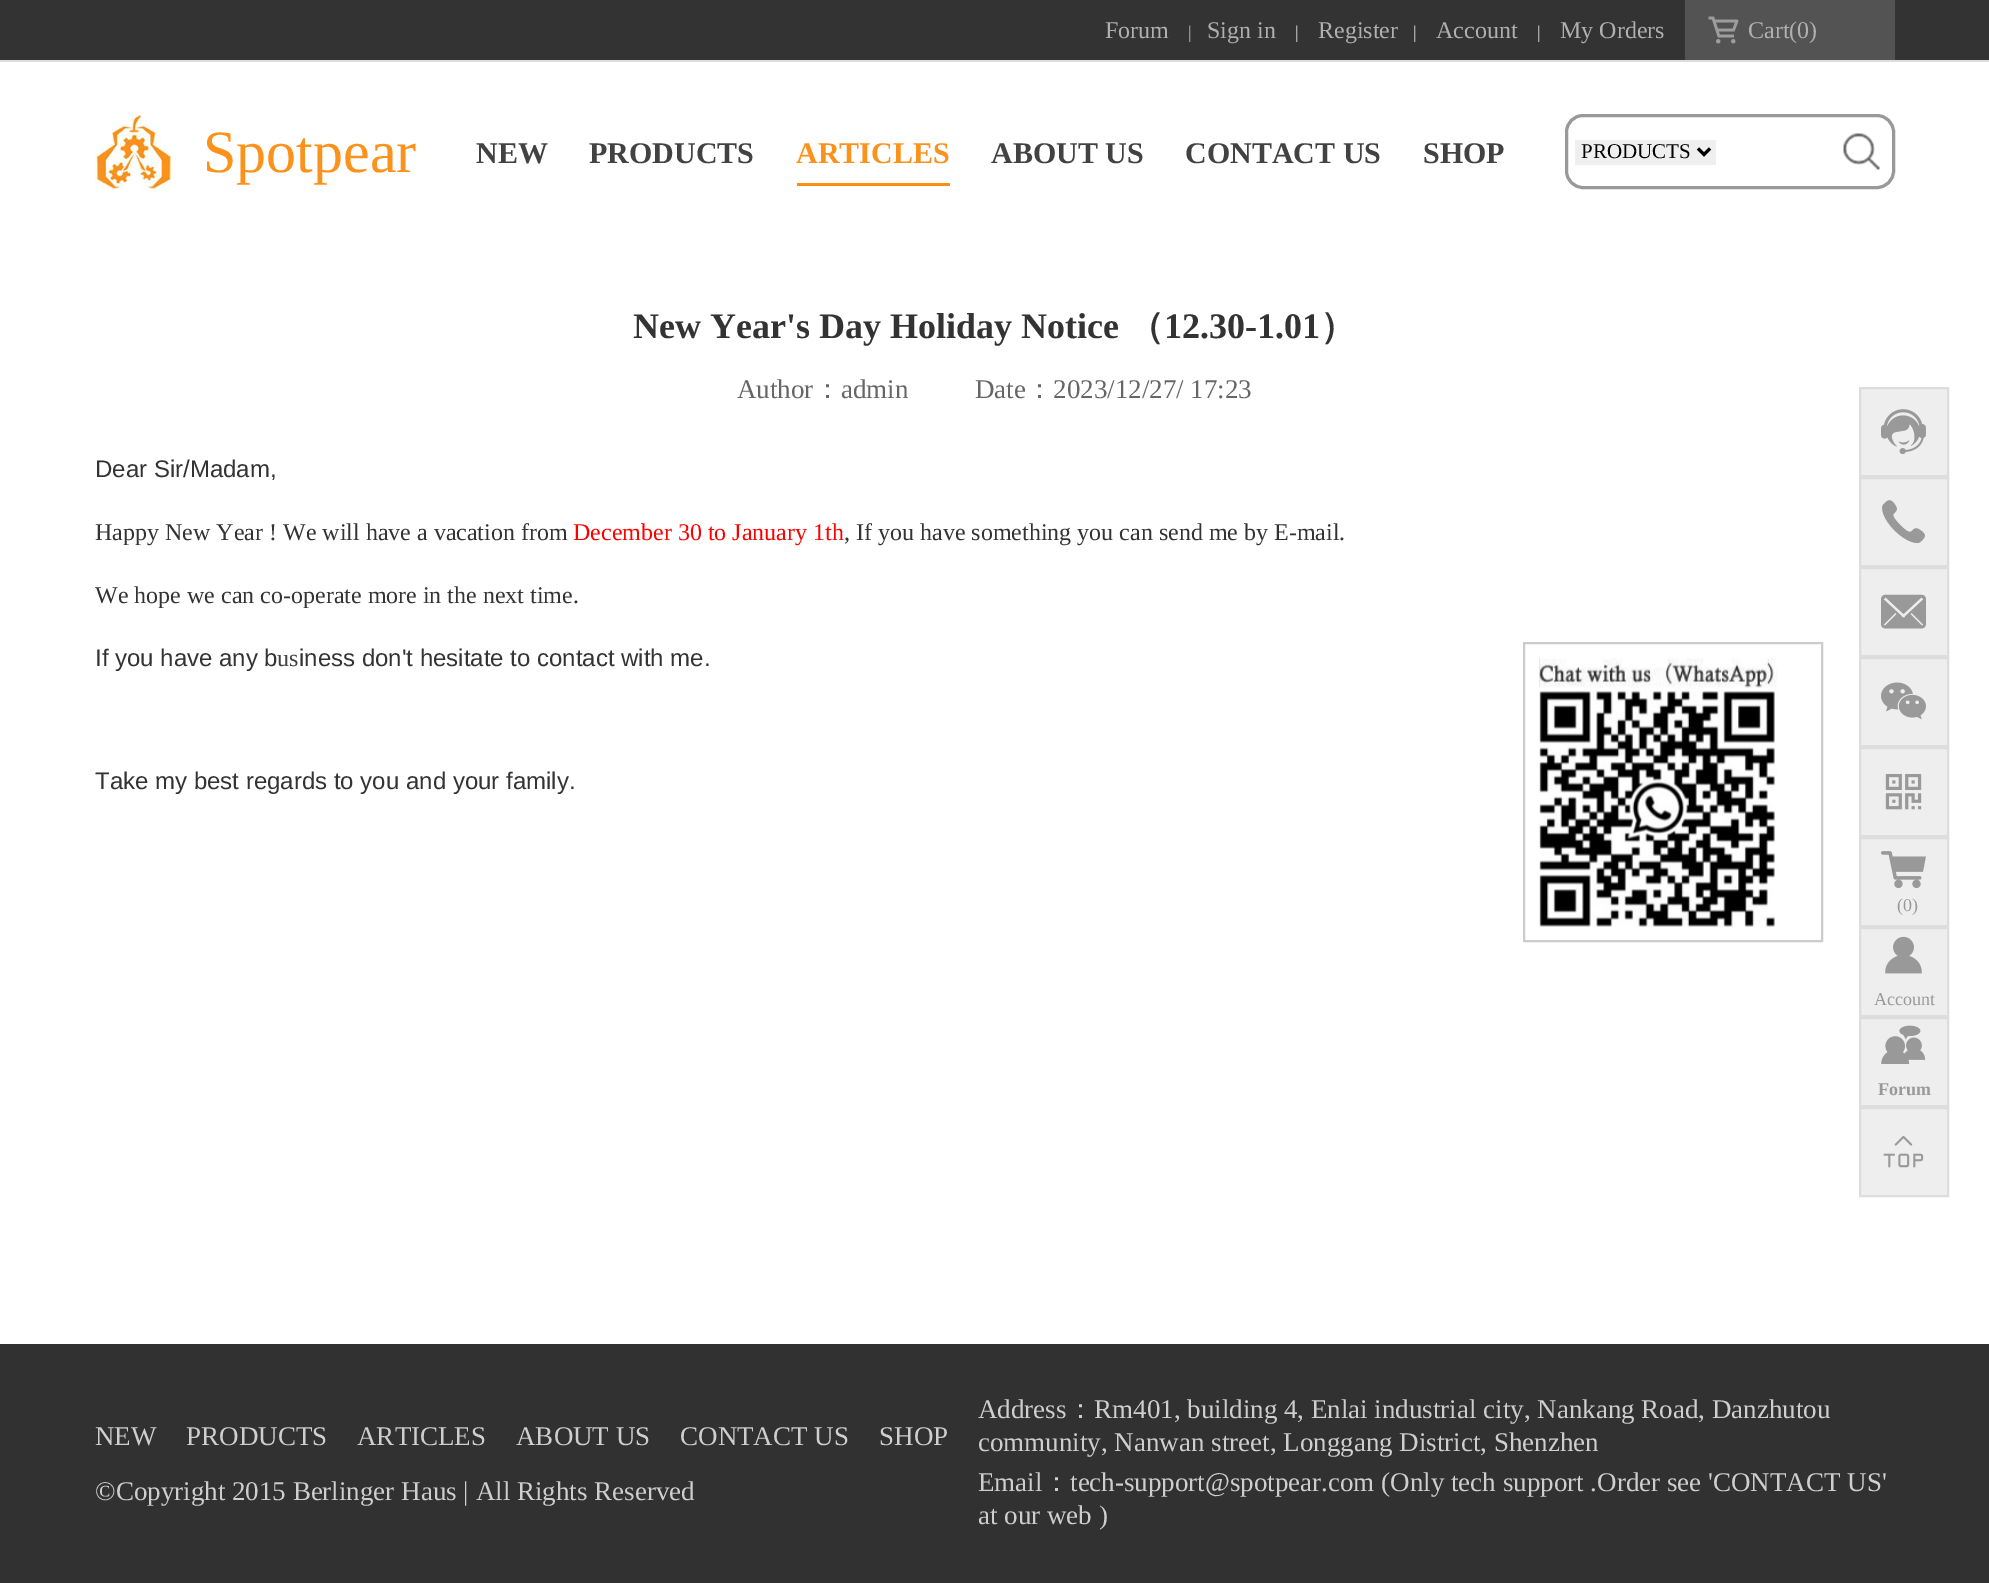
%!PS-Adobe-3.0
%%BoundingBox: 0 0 1989 1583
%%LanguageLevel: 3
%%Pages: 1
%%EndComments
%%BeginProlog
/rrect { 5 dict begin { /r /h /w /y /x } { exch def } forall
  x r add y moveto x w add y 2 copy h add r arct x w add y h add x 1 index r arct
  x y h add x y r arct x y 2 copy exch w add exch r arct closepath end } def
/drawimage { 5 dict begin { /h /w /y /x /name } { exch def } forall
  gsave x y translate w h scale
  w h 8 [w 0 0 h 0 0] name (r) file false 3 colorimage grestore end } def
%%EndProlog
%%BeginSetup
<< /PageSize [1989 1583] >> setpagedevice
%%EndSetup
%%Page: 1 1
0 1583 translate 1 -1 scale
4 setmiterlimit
1 setgray
0 0 1989 1583 rectfill
0.2 setgray
0 0 1989 60 rectfill
0.867 setgray
0 60 1989 2 rectfill
0.325 setgray
1685 0 210 60 rectfill
(images/1.raw) 1708 16 31 28 drawimage
(images/2.raw) 94 114 77 77 drawimage
0.984 0.557 0.082 setrgbcolor
797 183 153 3 rectfill
0.6 setgray
3 setlinewidth
1566.5 115.5 327 72 16.5 rrect stroke
0.937 setgray
1575 140 141 25 rectfill
0 setgray
newpath 1698 148.5 moveto 1704 154.5 lineto 1710 148.5 lineto stroke
(images/3.raw) 1843 133 37 37 drawimage
0.933 setgray
newpath 1860 388 moveto 1948 388 lineto 1948 476 lineto 1860 476 lineto closepath gsave fill grestore
0.867 setgray
2 setlinewidth
stroke
(images/4.raw) 1881 409 45 46 drawimage
0.933 setgray
newpath 1860 478 moveto 1948 478 lineto 1948 566 lineto 1860 566 lineto closepath gsave fill grestore
0.867 setgray
stroke
(images/5.raw) 1882 500 43 44 drawimage
0.933 setgray
newpath 1860 568 moveto 1948 568 lineto 1948 656 lineto 1860 656 lineto closepath gsave fill grestore
0.867 setgray
stroke
(images/6.raw) 1881 594 45 35 drawimage
0.8 setgray
1524 643 298 298 rectstroke
(images/7.raw) 1539 658 238 269 drawimage
0.933 setgray
newpath 1860 748 moveto 1948 748 lineto 1948 836 lineto 1860 836 lineto closepath gsave fill grestore
0.867 setgray
stroke
(images/8.raw) 1885 774 37 36 drawimage
0.933 setgray
newpath 1860 658 moveto 1948 658 lineto 1948 746 lineto 1860 746 lineto closepath gsave fill grestore
0.867 setgray
stroke
(images/9.raw) 1881 682 45 38 drawimage
0.933 setgray
newpath 1860 838 moveto 1948 838 lineto 1948 926 lineto 1860 926 lineto closepath gsave fill grestore
0.867 setgray
stroke
(images/10.raw) 1881 851 45 38 drawimage
0.933 setgray
newpath 1860 928 moveto 1948 928 lineto 1948 1016 lineto 1860 1016 lineto closepath gsave fill grestore
0.867 setgray
stroke
(images/11.raw) 1885 936 37 38 drawimage
0.933 setgray
newpath 1860 1018 moveto 1948 1018 lineto 1948 1106 lineto 1860 1106 lineto closepath gsave fill grestore
0.867 setgray
stroke
(images/12.raw) 1881 1025 45 39 drawimage
0.933 setgray
newpath 1860 1108 moveto 1948 1108 lineto 1948 1196 lineto 1860 1196 lineto closepath gsave fill grestore
0.867 setgray
stroke
(images/13.raw) 1883 1135 41 33 drawimage
0.192 setgray
0 1344 1989 239 rectfill
/LiberationSerif-Regular [24 0 0 -24 0 0] selectfont
0.69 setgray
1105 38 moveto (Forum) show
/LiberationSerif-Regular [18 0 0 -18 0 0] selectfont
1188 38 moveto (|) show
/LiberationSerif-Regular [24 0 0 -24 0 0] selectfont
1207 38 moveto (Sign in) show
/LiberationSerif-Regular [18 0 0 -18 0 0] selectfont
0.808 setgray
1295 38 moveto (|) show
/LiberationSerif-Regular [24 0 0 -24 0 0] selectfont
0.69 setgray
1318 38 moveto (Register) show
/LiberationSerif-Regular [18 0 0 -18 0 0] selectfont
0.808 setgray
1413 38 moveto (|) show
/LiberationSerif-Regular [24 0 0 -24 0 0] selectfont
0.69 setgray
1436 38 moveto (Account) show
/LiberationSerif-Regular [18 0 0 -18 0 0] selectfont
0.808 setgray
1537 38 moveto (|) show
/LiberationSerif-Regular [24 0 0 -24 0 0] selectfont
0.69 setgray
1560 38 moveto (My Orders) show
1748 38 moveto (Cart\(0\)) show
/LiberationSerif-Regular [60 0 0 -60 0 0] selectfont
0.984 0.573 0.11 setrgbcolor
203 172 moveto (Spotpear) show
/LiberationSerif-Bold [30 0 0 -30 0 0] selectfont
0.259 setgray
476 163 moveto (NEW) show
589 163 moveto (PRODUCTS) show
0.984 0.573 0.11 setrgbcolor
796 163 moveto (ARTICLES) show
0.259 setgray
991 163 moveto (ABOUT US) show
1185 163 moveto (CONTACT US) show
1423 163 moveto (SHOP) show
/LiberationSerif-Regular [21 0 0 -21 0 0] selectfont
0 setgray
1581 158 moveto (PRODUCTS) show
/LiberationSerif-Bold [36 0 0 -36 0 0] selectfont
0.2 setgray
633 338 moveto (New Year's Day Holiday Notice) show
/WenQuanYiZenHei-Bold [36 0 0 -36 0 0] selectfont
1128 338 moveto (（) show
/LiberationSerif-Bold [36 0 0 -36 0 0] selectfont
1164 338 moveto (12.30-1.01) show
/WenQuanYiZenHei-Bold [36 0 0 -36 0 0] selectfont
1320 338 moveto (）) show
/LiberationSerif-Regular [27 0 0 -27 0 0] selectfont
0.4 setgray
737 398 moveto (Author) show
/WenQuanYiZenHei-Medium [27 0 0 -27 0 0] selectfont
814 398 moveto (：) show
/LiberationSerif-Regular [27 0 0 -27 0 0] selectfont
841 398 moveto (admin) show
975 398 moveto (Date) show
/WenQuanYiZenHei-Medium [27 0 0 -27 0 0] selectfont
1026 398 moveto (：) show
/LiberationSerif-Regular [27 0 0 -27 0 0] selectfont
1053 398 moveto (2023/12/27/ 17:23) show
/LiberationSans-Regular [24 0 0 -24 0 0] selectfont
0.2 setgray
95 477 moveto (Dear Sir/Madam,) show
/LiberationSerif-Regular [24 0 0 -24 0 0] selectfont
95 540 moveto (Happy New Year ! We will have a vacation from) show
1 0 0 setrgbcolor
573 540 moveto (December 30 to January 1th) show
0.2 setgray
844 540 moveto (, If you have something you can send me by E-mail.) show
95 603 moveto (We hope we can co-operate more in the next time.) show
/LiberationSans-Regular [24 0 0 -24 0 0] selectfont
95 666 moveto (If you have any b) show
/LiberationSerif-Regular [24 0 0 -24 0 0] selectfont
0.259 setgray
277 666 moveto (us) show
/LiberationSans-Regular [24 0 0 -24 0 0] selectfont
0.2 setgray
299 666 moveto (iness don't hesitate to contact with me.) show
95 789 moveto (Take my best regards to you and your family.) show
/LiberationSerif-Regular [18 0 0 -18 0 0] selectfont
0.6 setgray
1897 911 moveto (\(0\)) show
1874 1005 moveto (Account) show
/LiberationSerif-Bold [18 0 0 -18 0 0] selectfont
1878 1095 moveto (Forum) show
/LiberationSerif-Regular [27 0 0 -27 0 0] selectfont
0.808 setgray
95 1445 moveto (NEW) show
186 1445 moveto (PRODUCTS) show
357 1445 moveto (ARTICLES) show
516 1445 moveto (ABOUT US) show
680 1445 moveto (CONTACT US) show
879 1445 moveto (SHOP) show
95 1500 moveto (©Copyright 2015 Berlinger Haus | All Rights Reserved) show
978 1418 moveto (Address) show
/WenQuanYiZenHei-Medium [27 0 0 -27 0 0] selectfont
1067 1418 moveto (：) show
/LiberationSerif-Regular [27 0 0 -27 0 0] selectfont
1094 1418 moveto (Rm401, building 4, Enlai industrial city, Nankang Road, Danzhutou) show
978 1451 moveto (community, Nanwan street, Longgang District, Shenzhen) show
978 1491 moveto (Email) show
/WenQuanYiZenHei-Medium [27 0 0 -27 0 0] selectfont
1043 1491 moveto (：) show
/LiberationSerif-Regular [27 0 0 -27 0 0] selectfont
1070 1491 moveto (tech-support@spotpear.com \(Only tech support .Order see 'CONTACT US') show
978 1524 moveto (at our web \)) show
showpage
%%EOF
